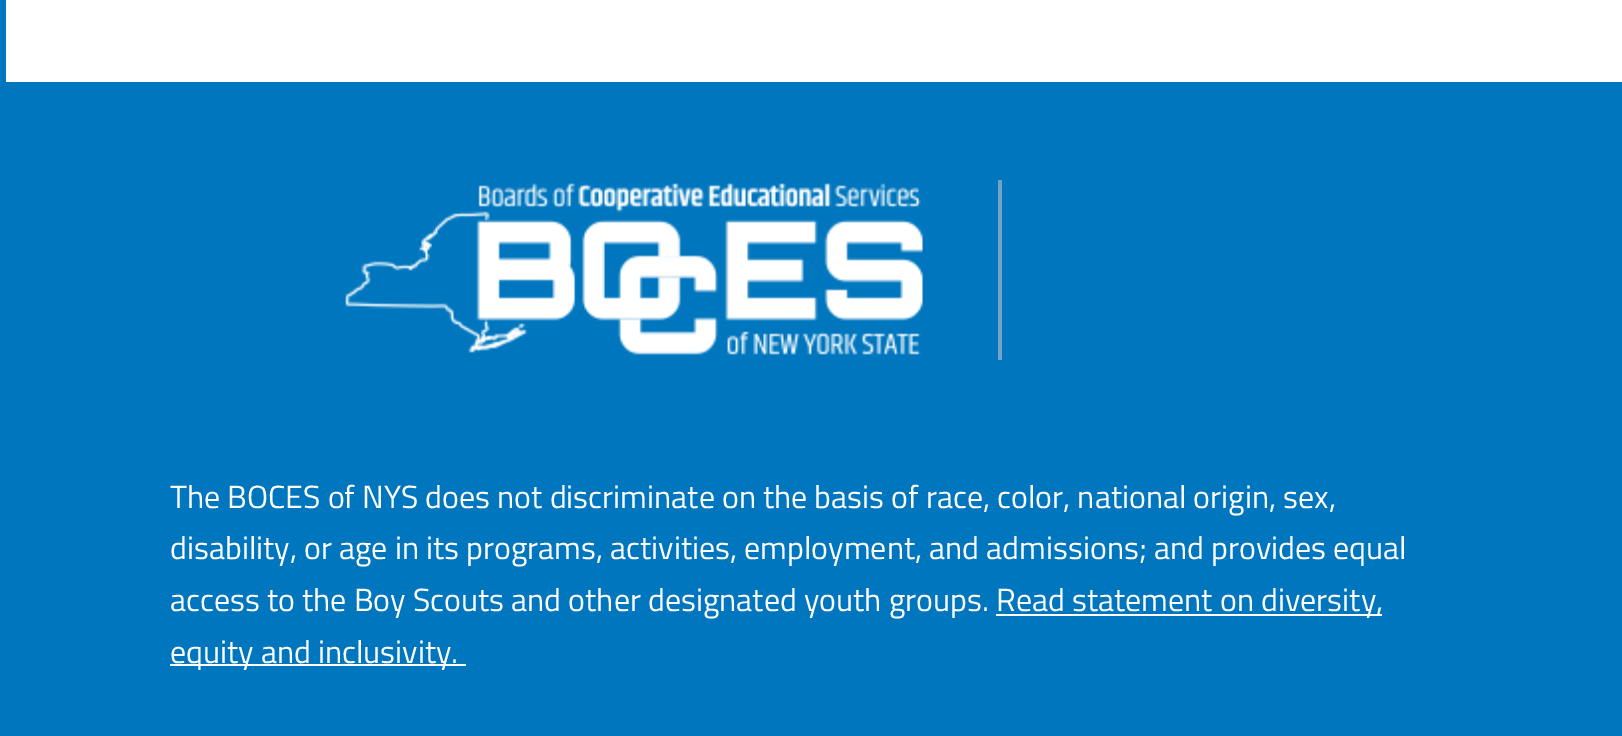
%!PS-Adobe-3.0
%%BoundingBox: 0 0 1622 736
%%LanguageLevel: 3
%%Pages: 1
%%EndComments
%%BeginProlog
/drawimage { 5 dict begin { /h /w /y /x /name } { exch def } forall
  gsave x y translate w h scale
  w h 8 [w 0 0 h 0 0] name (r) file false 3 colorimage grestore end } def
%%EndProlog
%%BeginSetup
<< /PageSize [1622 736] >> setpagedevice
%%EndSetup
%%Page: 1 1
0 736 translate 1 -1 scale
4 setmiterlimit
0 0.463 0.745 setrgbcolor
0 0 1622 736 rectfill
1 setgray
6 0 1616 82 rectfill
0.451 0.639 0.776 setrgbcolor
998 180 4 180 rectfill
(images/1.raw) 345 183 578 172 drawimage
1 setgray
996 614 386 2 rectfill
170 664 296 2 rectfill
/TitilliumWeb-Regular [32 0 0 -32 0 0] selectfont
170 508 moveto (The BOCES of NYS does not discriminate on the basis of race, color, national origin, sex,) show
170 559 moveto (disability, or age in its programs, activities, employment, and admissions; and provides equal) show
170 611 moveto (access to the Boy Scouts and other designated youth groups.) show
996 611 moveto (Read statement on diversity,) show
170 663 moveto (equity and inclusivity.) show
showpage
%%EOF
